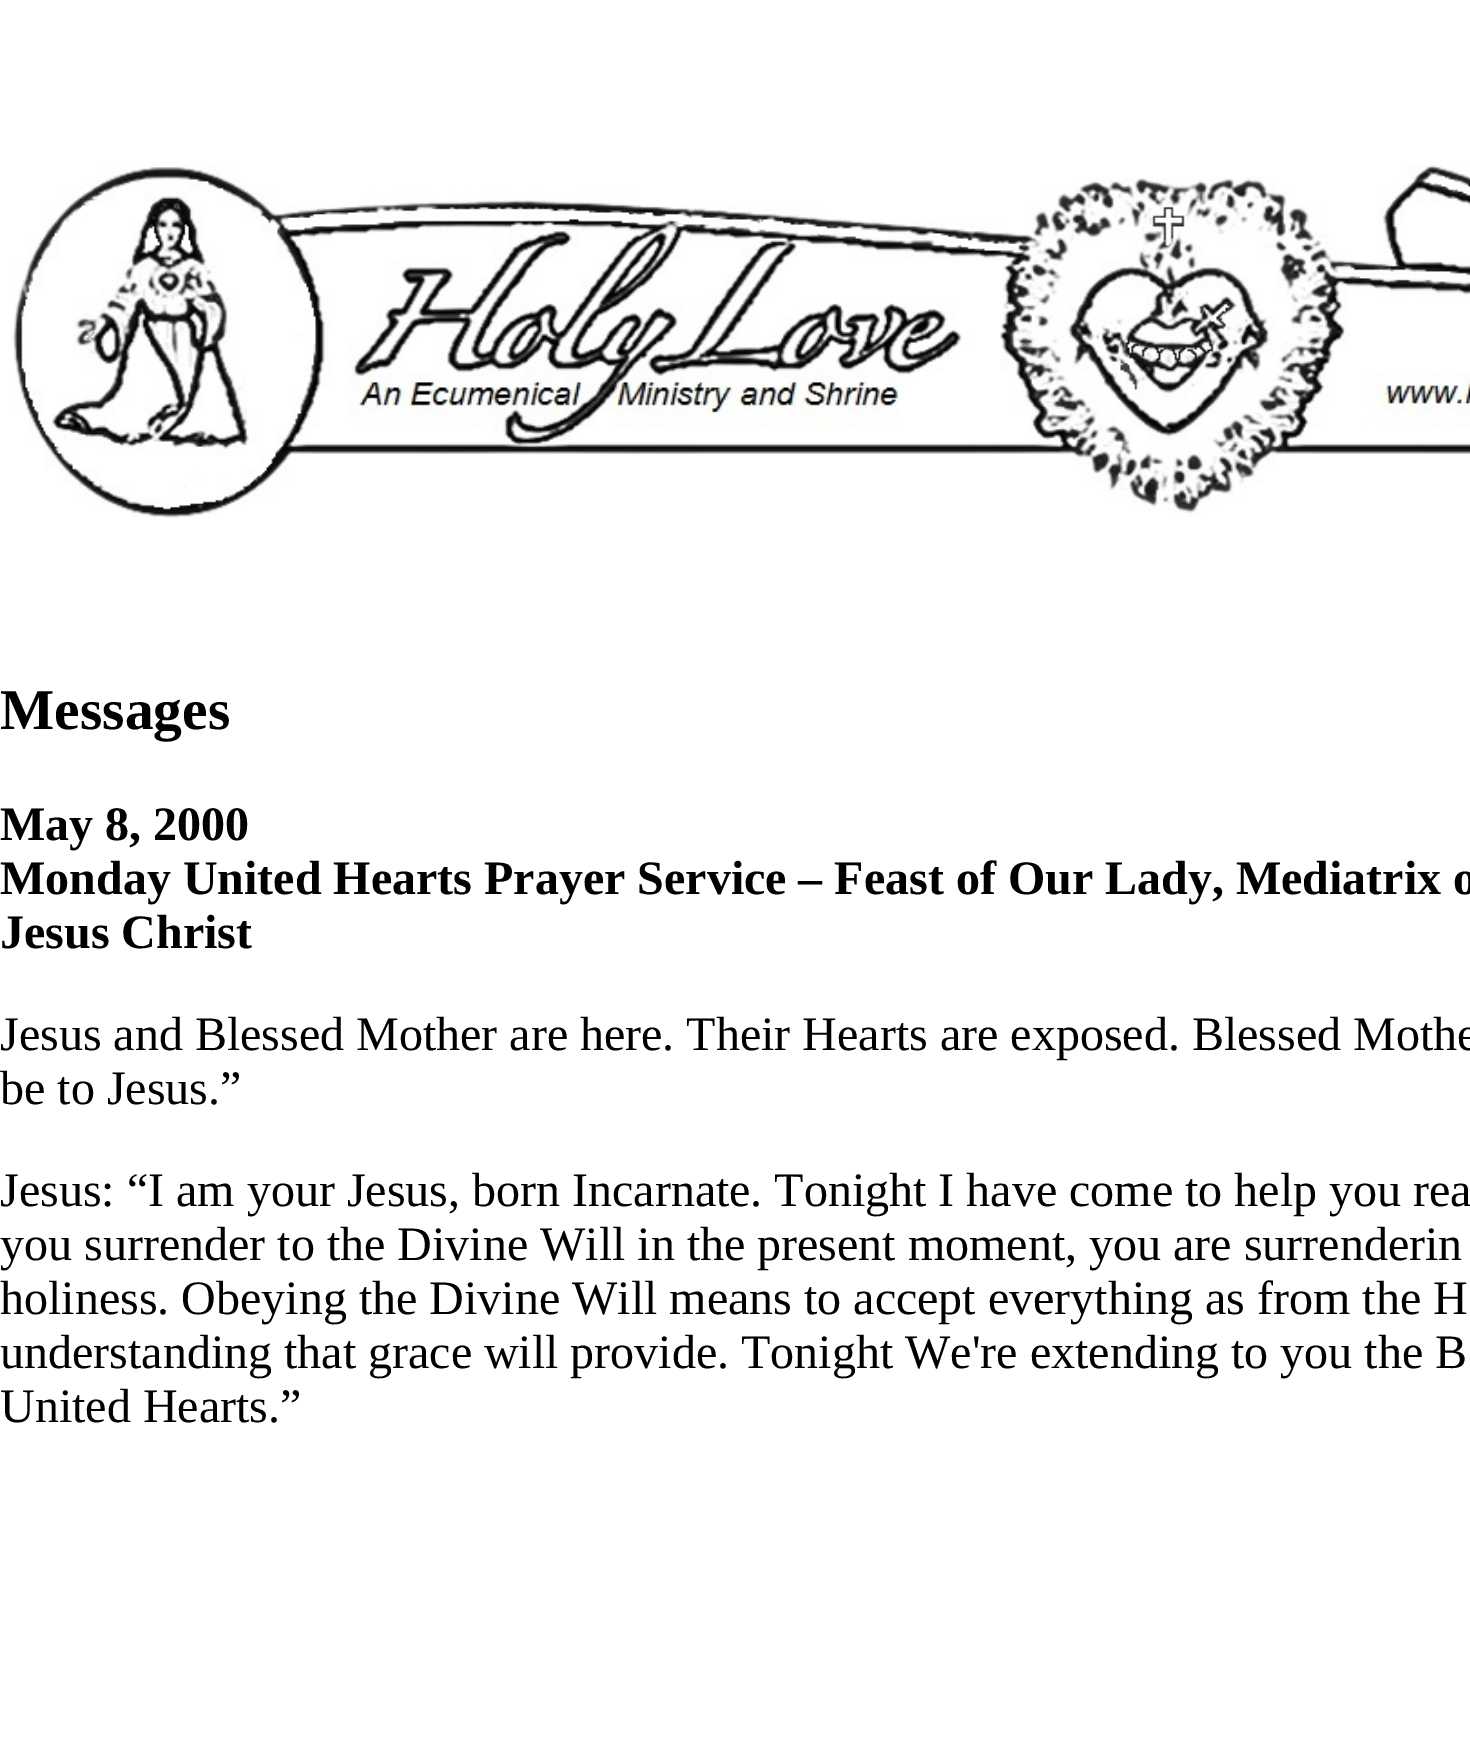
%!PS-Adobe-3.0
%%BoundingBox: 0 0 1470 1742
%%LanguageLevel: 3
%%Pages: 1
%%EndComments
%%BeginProlog
/drawimage { 5 dict begin { /h /w /y /x /name } { exch def } forall
  gsave x y translate w h scale
  w h 8 [w 0 0 h 0 0] name (r) file false 3 colorimage grestore end } def
%%EndProlog
%%BeginSetup
<< /PageSize [1470 1742] >> setpagedevice
%%EndSetup
%%Page: 1 1
0 1742 translate 1 -1 scale
4 setmiterlimit
1 setgray
0 0 1470 1742 rectfill
(images/1.raw) 12 165 1458 353 drawimage
/LiberationSerif-Bold [57.5 0 0 -57.5 0 0] selectfont
0 setgray
0 729 moveto (Messages) show
/LiberationSerif-Bold [48 0 0 -48 0 0] selectfont
0 840 moveto (May 8, 2000) show
0 894 moveto (Monday United Hearts Prayer Service – Feast of Our Lady, Mediatrix o) show
0 948 moveto (Jesus Christ) show
/LiberationSerif-Regular [48 0 0 -48 0 0] selectfont
0 1050 moveto (Jesus and Blessed Mother are here. Their Hearts are exposed. Blessed Mothe) show
0 1104 moveto (be to Jesus.”) show
0 1206 moveto (Jesus: “I am your Jesus, born Incarnate. Tonight I have come to help you rea) show
0 1260 moveto (you surrender to the Divine Will in the present moment, you are surrenderin) show
0 1314 moveto (holiness. Obeying the Divine Will means to accept everything as from the H) show
0 1368 moveto (understanding that grace will provide. Tonight We're extending to you the B) show
0 1422 moveto (United Hearts.”) show
showpage
%%EOF
